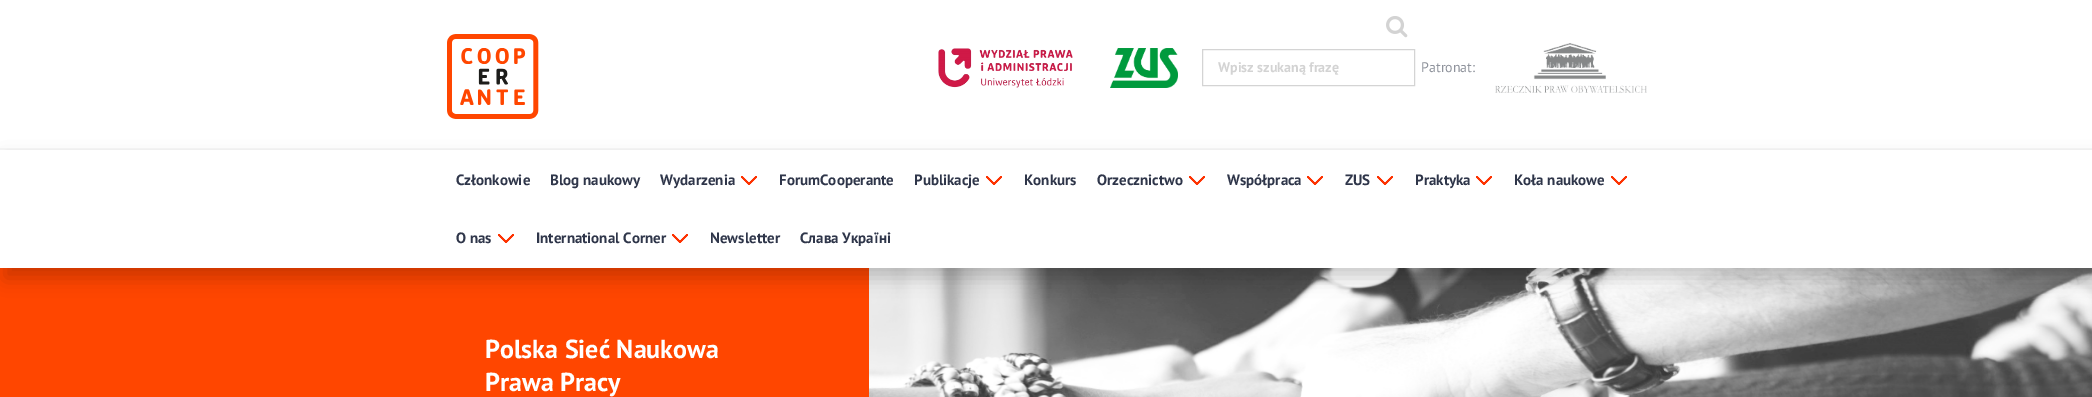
%!PS-Adobe-3.0
%%BoundingBox: 0 0 2092 397
%%LanguageLevel: 3
%%Pages: 1
%%EndComments
%%BeginProlog
/setalpha { dup .setfillconstantalpha .setstrokeconstantalpha } def
/rrect { 5 dict begin { /r /h /w /y /x } { exch def } forall
  x r add y moveto x w add y 2 copy h add r arct x w add y h add x 1 index r arct
  x y h add x y r arct x y 2 copy exch w add exch r arct closepath end } def
/softshadow { 12 dict begin { /a /b /q /h /w /y /x } { exch def } forall gsave /was 0 def
  9 -2 -9 { dup b mul 4 div /e exch def 1 sub .425 mul 2.718 exch exp 1 add a .99 .min exch div /now exch def
    1 1 now sub 1 was sub div sub setalpha /was now def
    w h .min e 2 mul add 0 gt { x e sub y e sub w e 2 mul add h e 2 mul add
      q e add b .6 mul add w h .min 2 div e add .min 0 .max rrect fill } if } for grestore end } def
/drawimage { 5 dict begin { /h /w /y /x /name } { exch def } forall
  gsave x y translate w h scale
  w h 8 [w 0 0 h 0 0] name (r) file false 3 colorimage grestore end } def
%%EndProlog
%%BeginSetup
<< /PageSize [2092 397] /PageUsesTransparency true >> setpagedevice
%%EndSetup
%%Page: 1 1
0 .pushpdf14devicefilter
0 397 translate 1 -1 scale
4 setmiterlimit
1 setgray
0 0 2092 397 rectfill
0.969 setgray
0 148 2092 2 rectfill
(images/1.raw) 447 34 92 85 drawimage
(images/2.raw) 938 48 135 40 drawimage
(images/3.raw) 1110 48 68 40 drawimage
(images/4.raw) 1386 16 22 22 drawimage
0.831 setgray
1202.5 49.5 212 36 rectstroke
(images/5.raw) 1495 43 152 50 drawimage
1 0.275 0 setrgbcolor
0 268 869 129 rectfill
(images/7.raw) 869 268 1223 129 drawimage
gsave
newpath 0 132 moveto 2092 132 lineto 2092 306 lineto 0 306 lineto closepath 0 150 moveto 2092 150 lineto 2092 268 lineto 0 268 lineto closepath eoclip newpath
0 setgray
5 160 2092 118 0 9 0.2 softshadow
grestore
(images/6.raw) 741 176 16 9 drawimage
(images/6.raw) 986 176 16 9 drawimage
(images/6.raw) 1189 176 16 9 drawimage
(images/6.raw) 1307 176 16 9 drawimage
(images/6.raw) 1377 176 16 9 drawimage
(images/6.raw) 1476 176 16 9 drawimage
(images/6.raw) 1611 176 16 9 drawimage
(images/6.raw) 498 234 16 9 drawimage
(images/6.raw) 672 234 16 9 drawimage
/PTSans-Bold [14 0 0 -14 0 0] selectfont
0.827 setgray
1218 72 moveto (Wpisz szukaną frazę) show
/PTSans-Regular [14 0 0 -14 0 0] selectfont
0.561 0.576 0.612 setrgbcolor
1421 72 moveto (Patronat:) show
/PTSans-Bold [15 0 0 -15 0 0] selectfont
0.184 0.212 0.29 setrgbcolor
456 185 moveto (Członkowie) show
550 185 moveto (Blog naukowy) show
660 185 moveto (Wydarzenia) show
779 185 moveto (ForumCooperante) show
914 185 moveto (Publikacje) show
1024 185 moveto (Konkurs) show
1097 185 moveto (Orzecznictwo) show
1227 185 moveto (Współpraca) show
1345 185 moveto (ZUS) show
1415 185 moveto (Praktyka) show
1514 185 moveto (Koła naukowe) show
456 243 moveto (O nas) show
536 243 moveto (International Corner) show
710 243 moveto (Newsletter) show
800 243 moveto (Слава Україні) show
/PTSans-Bold [26 0 0 -26 0 0] selectfont
1 setgray
485 358 moveto (Polska Sieć Naukowa) show
485 391 moveto (Prawa Pracy) show
.poppdf14devicefilter showpage
%%EOF
